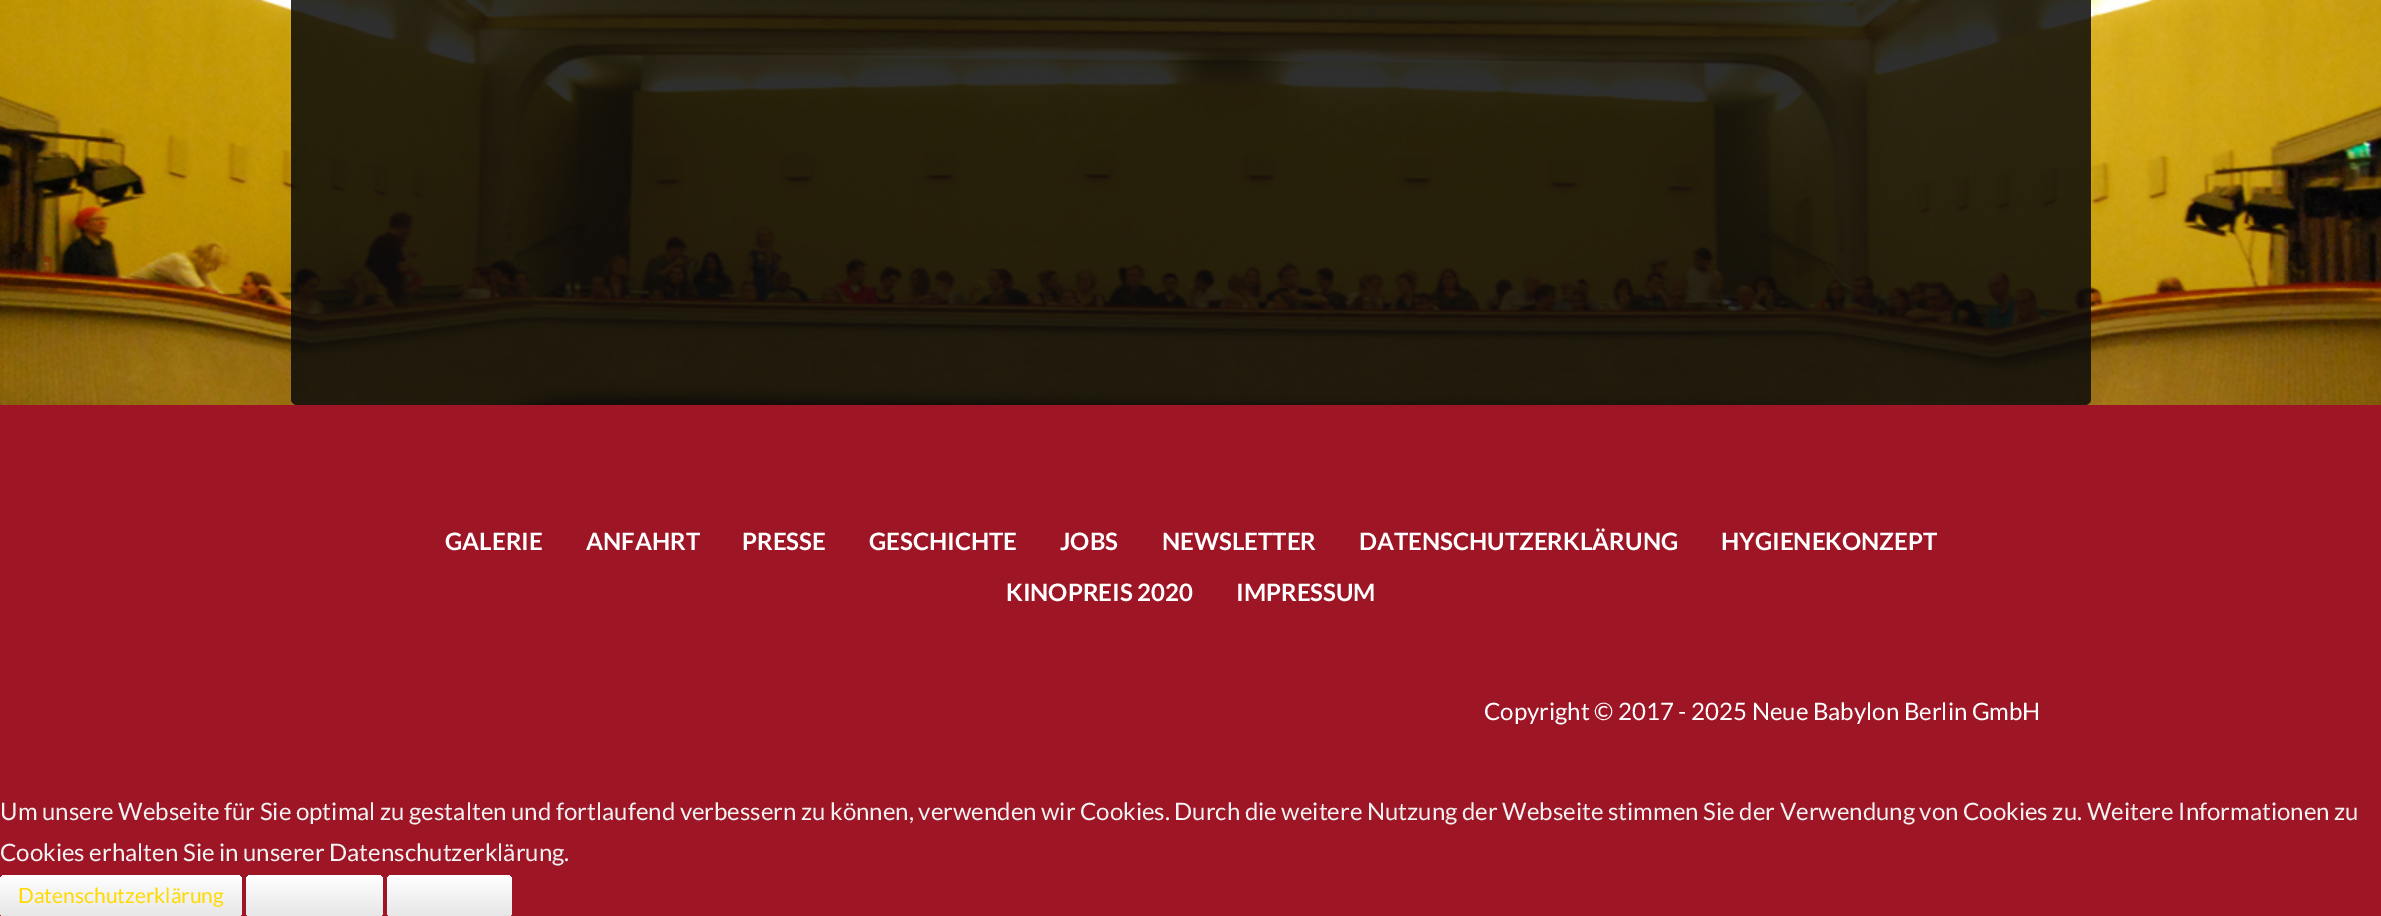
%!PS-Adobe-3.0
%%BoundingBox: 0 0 2381 916
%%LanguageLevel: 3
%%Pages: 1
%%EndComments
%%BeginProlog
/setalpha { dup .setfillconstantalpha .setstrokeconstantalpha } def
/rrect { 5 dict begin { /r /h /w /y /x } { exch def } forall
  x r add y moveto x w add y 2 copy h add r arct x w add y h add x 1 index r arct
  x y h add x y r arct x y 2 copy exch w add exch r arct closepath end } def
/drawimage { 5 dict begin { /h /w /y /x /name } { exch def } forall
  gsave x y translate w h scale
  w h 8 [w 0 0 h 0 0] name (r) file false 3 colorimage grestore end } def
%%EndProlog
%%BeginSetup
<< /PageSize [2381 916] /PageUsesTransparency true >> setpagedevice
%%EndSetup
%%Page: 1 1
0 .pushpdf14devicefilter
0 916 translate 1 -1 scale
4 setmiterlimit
1 setgray
0 0 2381 916 rectfill
(images/1.raw) 0 0 2381 405 drawimage
0.85 setalpha
0.039 setgray
291 -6 1800 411 6 rrect fill
1 setalpha
0.62 0.086 0.149 setrgbcolor
0 405 2381 511 rectfill
gsave 0 875 242 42 6 rrect clip newpath
<< /ShadingType 2 /ColorSpace /DeviceRGB /Coords [121 875 121 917] /Extend [true true] /Function << /FunctionType 2 /Domain [0 1] /C0 [1 1 1] /C1 [0.902 0.902 0.902] /N 1 >> >> shfill grestore
gsave 246 875 137 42 6 rrect clip newpath
<< /ShadingType 2 /ColorSpace /DeviceRGB /Coords [314 875 314 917] /Extend [true true] /Function << /FunctionType 2 /Domain [0 1] /C0 [1 1 1] /C1 [0.902 0.902 0.902] /N 1 >> >> shfill grestore
gsave 387 875 125 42 6 rrect clip newpath
<< /ShadingType 2 /ColorSpace /DeviceRGB /Coords [449 875 449 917] /Extend [true true] /Function << /FunctionType 2 /Domain [0 1] /C0 [1 1 1] /C1 [0.902 0.902 0.902] /N 1 >> >> shfill grestore
/Lato-Bold [24 0 0 -24 0 0] selectfont
1 setgray
445 550 moveto (GALERIE) show
586 550 moveto (ANFAHRT) show
742 550 moveto (PRESSE) show
869 550 moveto (GESCHICHTE) show
1060 550 moveto (JOBS) show
1162 550 moveto (NEWSLETTER) show
1359 550 moveto (DATENSCHUTZERKLÄRUNG) show
1721 550 moveto (HYGIENEKONZEPT) show
1006 601 moveto (KINOPREIS 2020) show
1236 601 moveto (IMPRESSUM) show
/Lato-Regular [24 0 0 -24 0 0] selectfont
1484 720 moveto (Copyright © 2017 - 2025 Neue Babylon Berlin GmbH) show
0.949 setgray
0 820 moveto (Um unsere Webseite für Sie optimal zu gestalten und fortlaufend verbessern zu können, verwenden wir Cookies. Durch die weitere Nutzung der Webseite stimmen Sie der Verwendung von Cookies zu. Weitere Informationen zu) show
0 861 moveto (Cookies erhalten Sie in unserer Datenschutzerklärung.) show
/Lato-Regular [21 0 0 -21 0 0] selectfont
1 0.851 0 setrgbcolor
18 903 moveto (Datenschutzerklärung) show
.poppdf14devicefilter showpage
%%EOF
